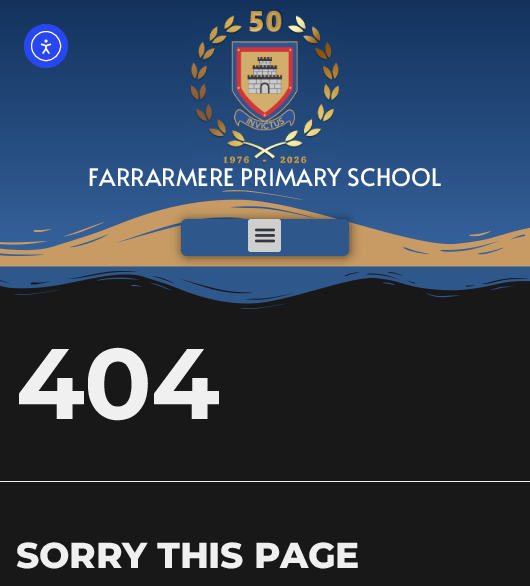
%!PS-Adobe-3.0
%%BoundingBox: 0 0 530 586
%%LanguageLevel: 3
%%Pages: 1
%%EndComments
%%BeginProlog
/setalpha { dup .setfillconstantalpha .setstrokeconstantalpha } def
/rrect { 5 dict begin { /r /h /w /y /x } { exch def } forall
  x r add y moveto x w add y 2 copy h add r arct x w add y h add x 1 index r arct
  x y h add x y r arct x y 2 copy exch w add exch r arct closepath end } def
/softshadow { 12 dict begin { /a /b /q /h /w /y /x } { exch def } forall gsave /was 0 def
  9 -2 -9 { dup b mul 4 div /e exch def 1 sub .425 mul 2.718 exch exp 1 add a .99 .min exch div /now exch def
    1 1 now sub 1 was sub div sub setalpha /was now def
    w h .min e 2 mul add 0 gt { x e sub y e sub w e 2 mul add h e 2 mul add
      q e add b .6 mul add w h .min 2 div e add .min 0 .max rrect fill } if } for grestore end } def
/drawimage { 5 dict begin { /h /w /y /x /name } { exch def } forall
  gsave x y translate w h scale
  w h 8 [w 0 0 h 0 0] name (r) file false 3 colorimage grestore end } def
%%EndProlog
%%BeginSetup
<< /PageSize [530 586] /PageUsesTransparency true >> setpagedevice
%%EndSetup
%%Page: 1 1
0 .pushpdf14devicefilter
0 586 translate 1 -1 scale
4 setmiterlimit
0.094 setgray
0 0 530 586 rectfill
gsave newpath 0 0 moveto 530 0 lineto 530 256 lineto 0 256 lineto closepath clip newpath
<< /ShadingType 2 /ColorSpace /DeviceRGB /Coords [265 0 265 266] /Extend [true true] /Function << /FunctionType 2 /Domain [0 1] /C0 [0.075 0.2 0.365] /C1 [0.216 0.392 0.624] /N 1 >> >> shfill grestore
0.157 0.278 0.953 setrgbcolor
newpath 46 46 22 0 360 arc closepath fill
1 setgray
newpath 46 46 14.5 0 360 arc closepath stroke
(images/1.raw) 40 39 12 15 drawimage
(images/2.raw) 190 10 150 155 drawimage
(images/5.raw) 0 266 530 44 drawimage
(images/4.raw) 0 190 530 77 drawimage
0 setgray
181 219 170 39 7 5 0.5 softshadow
0.18 0.341 0.549 setrgbcolor
181 219 168 37 6 rrect fill
0.812 setgray
248 219 33 33 3 rrect fill
(images/3.raw) 254 228 21 15 drawimage
0.941 setgray
0 481 530 1 rectfill
/Alata-Regular [24 0 0 -24 0 0] selectfont
1 setgray
88 186 moveto (FARRARMERE PRIMARY SCHOOL) show
/Montserrat-Bold [100 0 0 -100 0 0] selectfont
0.941 setgray
16 419 moveto -1 0 (404) ashow
/Montserrat-ExtraBold [36 0 0 -36 0 0] selectfont
16 568 moveto -0.25 0 (SORRY THIS PAGE) ashow
.poppdf14devicefilter showpage
%%EOF
